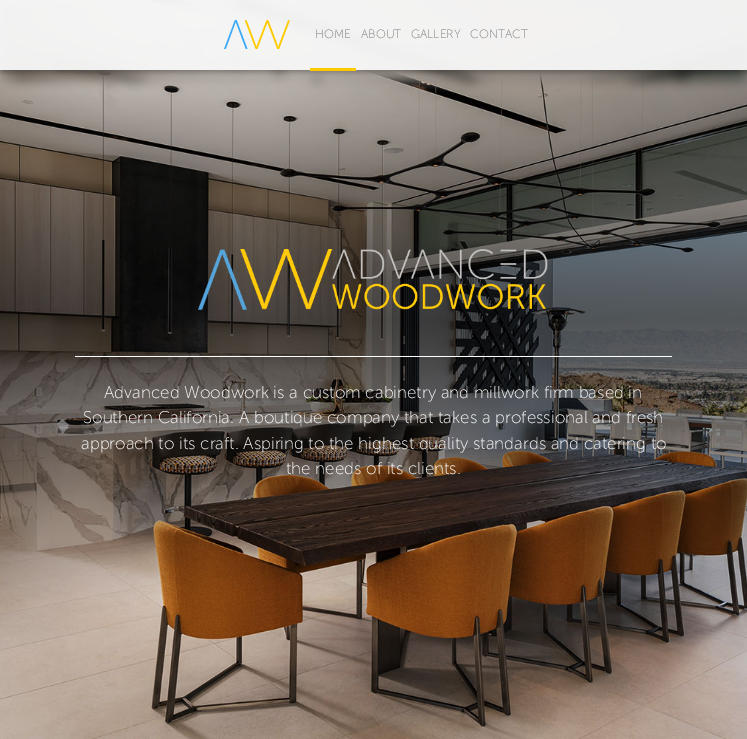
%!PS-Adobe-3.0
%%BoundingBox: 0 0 747 739
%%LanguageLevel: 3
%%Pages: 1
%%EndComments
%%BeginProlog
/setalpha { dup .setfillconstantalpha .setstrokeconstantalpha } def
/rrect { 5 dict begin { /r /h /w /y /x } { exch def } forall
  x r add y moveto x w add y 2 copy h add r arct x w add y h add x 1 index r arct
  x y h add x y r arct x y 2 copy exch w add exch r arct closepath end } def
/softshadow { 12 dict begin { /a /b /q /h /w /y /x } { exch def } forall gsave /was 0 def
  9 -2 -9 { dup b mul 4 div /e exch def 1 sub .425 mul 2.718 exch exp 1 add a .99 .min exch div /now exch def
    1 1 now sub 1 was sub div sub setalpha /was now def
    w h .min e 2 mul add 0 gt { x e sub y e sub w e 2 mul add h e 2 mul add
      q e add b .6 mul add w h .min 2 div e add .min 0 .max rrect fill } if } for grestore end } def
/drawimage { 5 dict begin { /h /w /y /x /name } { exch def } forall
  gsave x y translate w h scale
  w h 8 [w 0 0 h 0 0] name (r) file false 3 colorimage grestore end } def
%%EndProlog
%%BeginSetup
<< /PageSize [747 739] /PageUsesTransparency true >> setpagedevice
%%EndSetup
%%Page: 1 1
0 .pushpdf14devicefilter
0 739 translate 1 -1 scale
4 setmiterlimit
1 setgray
0 0 747 739 rectfill
(images/2.raw) 0 0 747 739 drawimage
(images/3.raw) 0 0 747 92 drawimage
gsave
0 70 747 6 rectclip
0 setgray
0 2 747 70 0 2.5 0.3 softshadow
grestore
0.95 setalpha
0.969 setgray
0 0 747 70 rectfill
1 setalpha
(images/1.raw) 224 20 66 29 drawimage
1 0.788 0 setrgbcolor
310 68 46 3 rectfill
(images/4.raw) 198 249 350 61 drawimage
1 setgray
75 356 597 1 rectfill
/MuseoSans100-Light [12 0 0 -12 0 0] selectfont
0.482 setgray
315 38 moveto (HOME) show
361 38 moveto (ABOUT) show
411 38 moveto (GALLERY) show
470 38 moveto (CONTACT) show
/MuseoSans100-Light [17 0 0 -17 0 0] selectfont
1 setgray
104 398 moveto (Advanced Woodwork is a custom cabinetry and millwork firm based in) show
83 423 moveto (Southern California. A boutique company that takes a professional and fresh) show
81 449 moveto (approach to its craft. Aspiring to the highest quality standards and catering to) show
286 474 moveto (the needs of its clients.) show
.poppdf14devicefilter showpage
%%EOF
